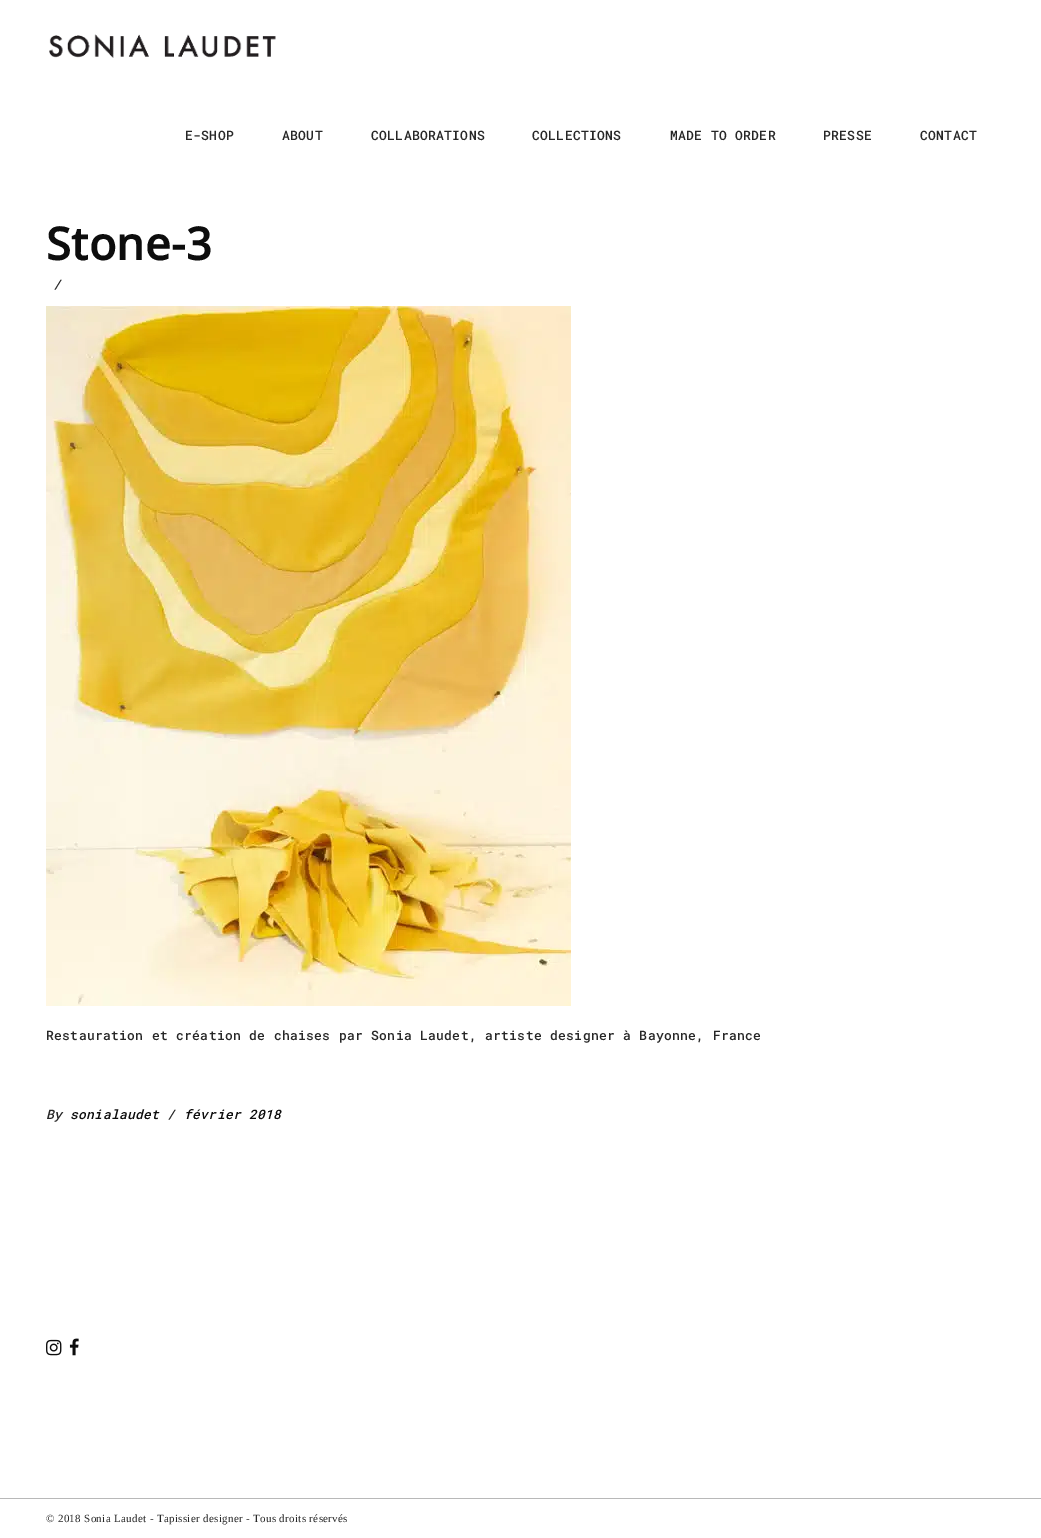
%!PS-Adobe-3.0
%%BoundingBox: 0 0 1041 1538
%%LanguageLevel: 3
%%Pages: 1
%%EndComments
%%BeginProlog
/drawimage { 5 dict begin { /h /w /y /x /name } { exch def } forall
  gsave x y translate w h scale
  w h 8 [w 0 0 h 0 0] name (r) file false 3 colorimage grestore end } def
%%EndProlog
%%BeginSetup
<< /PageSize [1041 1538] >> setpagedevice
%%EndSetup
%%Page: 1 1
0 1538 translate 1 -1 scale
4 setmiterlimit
1 setgray
0 0 1041 1538 rectfill
(images/1.raw) 49 34 227 24 drawimage
(images/2.raw) 46 306 525 700 drawimage
(images/3.raw) 46 1339 16 17 drawimage
(images/4.raw) 69 1338 10 18 drawimage
0.722 setgray
0 1498 1041 1 rectfill
/RobotoMono-Medium [13 0 0 -13 0 0] selectfont
0.153 setgray
185 140 moveto 0.33 0 (E-SHOP) ashow
282 140 moveto 0.33 0 (ABOUT) ashow
371 140 moveto 0.33 0 (COLLABORATIONS) ashow
532 140 moveto 0.33 0 (COLLECTIONS) ashow
670 140 moveto 0.33 0 (MADE TO ORDER) ashow
823 140 moveto 0.33 0 (PRESSE) ashow
920 140 moveto 0.33 0 (CONTACT) ashow
/OpenSans-Bold [45 0 0 -45 0 0] selectfont
0.051 setgray
46 260 moveto 0.5 0 (Stone-3) ashow
/RobotoMono-MediumItalic [13 0 0 -13 0 0] selectfont
0.153 setgray
53 289 moveto 0.33 0 (/) ashow
/RobotoMono-Medium [13 0 0 -13 0 0] selectfont
46 1040 moveto 0.33 0 (Restauration et création de chaises par Sonia Laudet, artiste designer à Bayonne, France) ashow
/RobotoMono-MediumItalic [13 0 0 -13 0 0] selectfont
46 1119 moveto 0.33 0 (By) ashow
0.051 setgray
70 1119 moveto 0.33 0 (sonialaudet) ashow
0.153 setgray
167 1119 moveto 0.33 0 (/) ashow
0.051 setgray
184 1119 moveto 0.33 0 (février 2018) ashow
/LiberationSerif-Regular [11 0 0 -11 0 0] selectfont
0.153 setgray
46 1522 moveto 0.33 0 (© 2018 Sonia Laudet - Tapissier designer - Tous droits réservés) ashow
showpage
%%EOF
